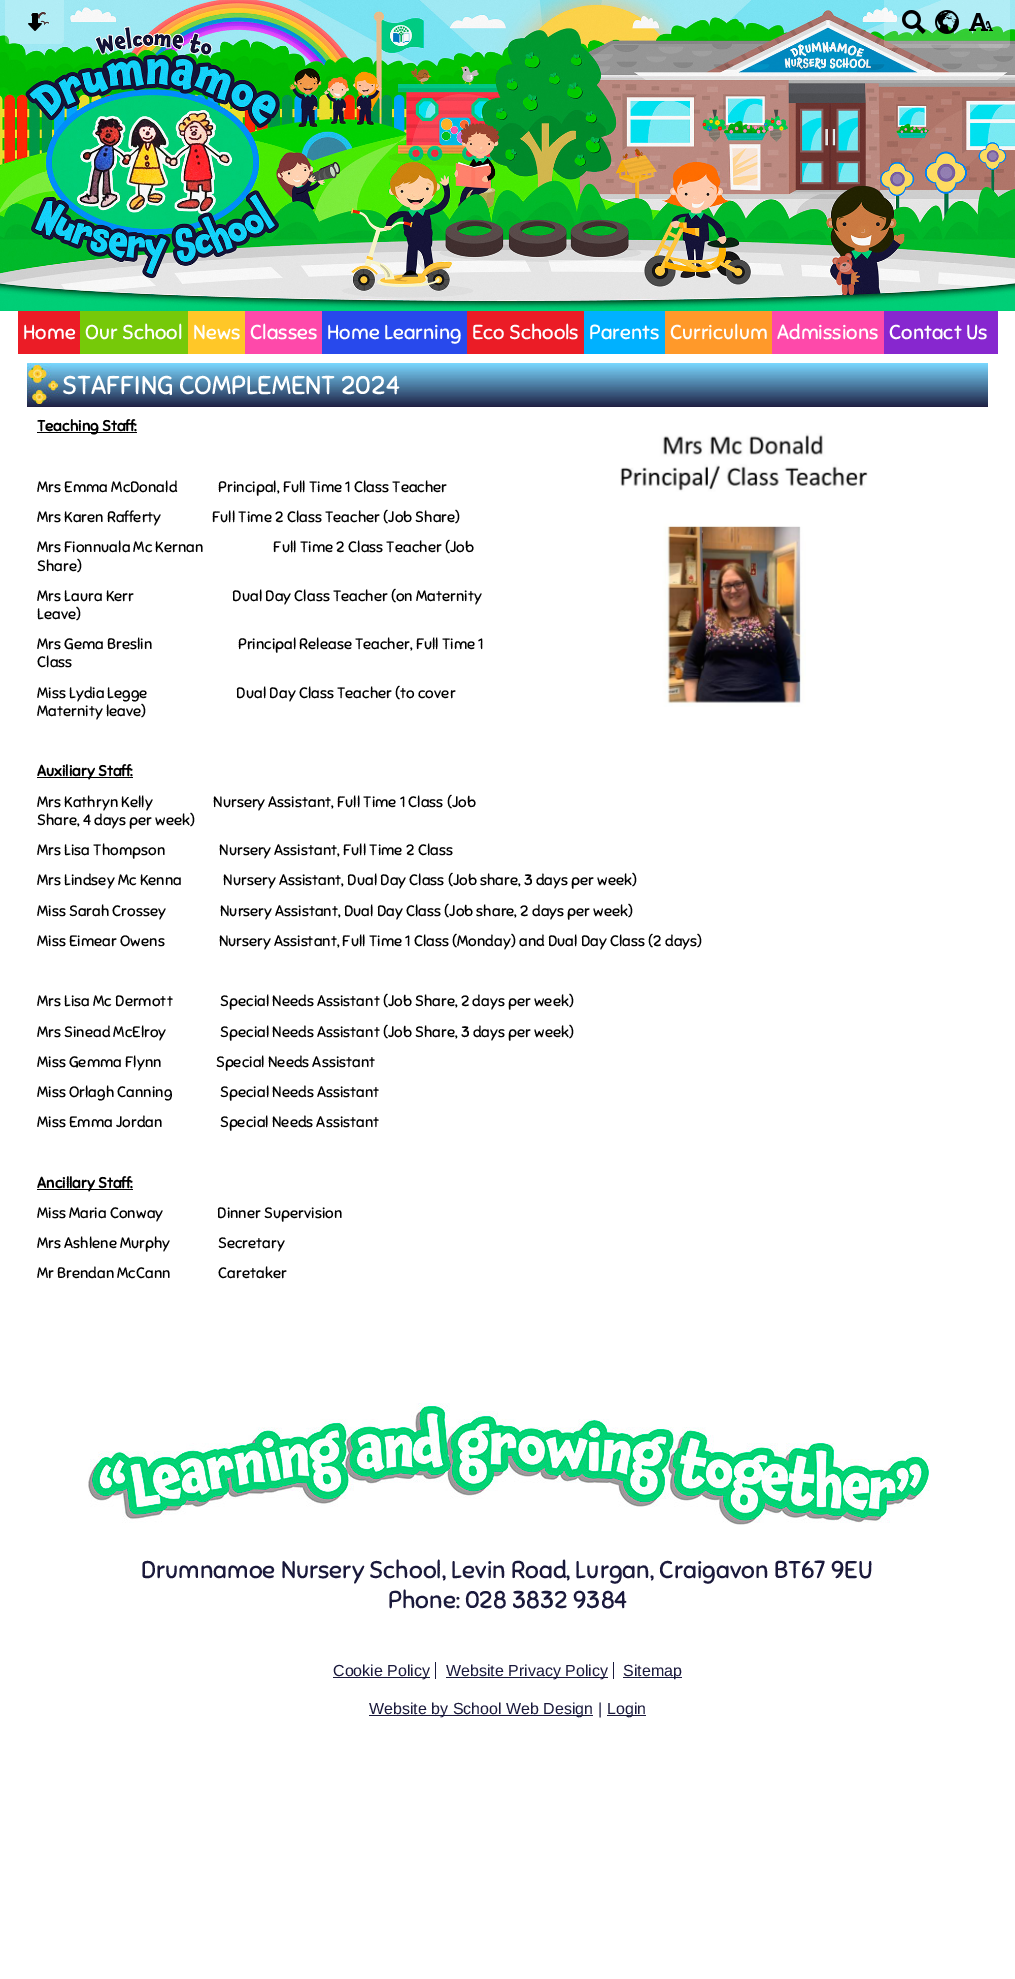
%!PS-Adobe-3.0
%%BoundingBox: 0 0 1015 1979
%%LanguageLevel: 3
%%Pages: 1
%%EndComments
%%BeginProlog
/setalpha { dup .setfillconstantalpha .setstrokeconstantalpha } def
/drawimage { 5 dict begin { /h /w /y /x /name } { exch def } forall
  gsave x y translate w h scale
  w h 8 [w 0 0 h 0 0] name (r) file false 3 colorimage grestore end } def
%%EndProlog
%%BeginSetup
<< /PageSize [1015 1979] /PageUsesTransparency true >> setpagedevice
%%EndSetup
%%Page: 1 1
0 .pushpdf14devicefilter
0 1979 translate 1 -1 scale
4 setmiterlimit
1 setgray
0 0 1015 1979 rectfill
(images/1.raw) 0 0 1015 311 drawimage
0.2 setalpha
newpath 5 0 moveto 64 0 lineto 64 39 lineto 64 42 62 44 59 44 curveto 10 44 lineto 7 44 5 42 5 39 curveto closepath fill
1 setalpha
(images/2.raw) 28 13 14 18 drawimage
0.2 setalpha
newpath 884 0 moveto 1010 0 lineto 1010 43 lineto 1010 46 1008 48 1005 48 curveto 889 48 lineto 886 48 884 46 884 43 curveto closepath fill
1 setalpha
(images/3.raw) 902 10 24 24 drawimage
(images/4.raw) 935 10 24 24 drawimage
(images/5.raw) 969 13 24 18 drawimage
0.529 0.153 0.812 setrgbcolor
884 311 114 43 rectfill
0.922 0.11 0.149 setrgbcolor
18 311 62 43 rectfill
0.463 0.788 0.035 setrgbcolor
80 311 108 43 rectfill
1 0.78 0.157 setrgbcolor
188 311 57 43 rectfill
0.996 0.286 0.667 setrgbcolor
245 311 77 43 rectfill
0.157 0.286 0.925 setrgbcolor
322 311 145 43 rectfill
0.922 0.11 0.149 setrgbcolor
467 311 117 43 rectfill
0 0.694 1 setrgbcolor
584 311 81 43 rectfill
1 0.6 0.165 setrgbcolor
665 311 107 43 rectfill
0.996 0.286 0.667 setrgbcolor
772 311 112 43 rectfill
(images/6.raw) 27 363 961 44 drawimage
0 setgray
37 432 100 1 rectfill
37 777 96 1 rectfill
37 1189 96 1 rectfill
(images/7.raw) 620 433 248 274 drawimage
(images/8.raw) 88 1403 842 122 drawimage
0.102 0.098 0.231 setrgbcolor
435 1662 1 17 rectfill
333 1677 97 1 rectfill
613 1662 1 17 rectfill
446 1677 162 1 rectfill
623 1677 59 1 rectfill
369 1715 224 1 rectfill
607 1715 39 1 rectfill
/Sniglet-Regular [20.25 0 0 -20.25 0 0] selectfont
1 setgray
23 339 moveto (Home) show
85 339 moveto (Our School) show
193 339 moveto (News) show
250 339 moveto (Classes) show
327 339 moveto (Home Learning) show
472 339 moveto (Eco Schools) show
589 339 moveto (Parents) show
670 339 moveto (Curriculum) show
777 339 moveto (Admissions) show
889 339 moveto (Contact Us) show
/Sniglet-Regular [25.8 0 0 -25.8 0 0] selectfont
62 394 moveto (STAFFING COMPLEMENT 2024) show
/Sniglet-Bold [15.2 0 0 -15.2 0 0] selectfont
0 setgray
37 431 moveto (Teaching Staff:) show
/Sniglet-Regular [15.2 0 0 -15.2 0 0] selectfont
37 492 moveto (Mrs Emma McDonald             Principal, Full Time 1 Class Teacher) show
37 522 moveto (Mrs Karen Rafferty                Full Time 2 Class Teacher \(Job Share\)) show
37 552 moveto (Mrs Fionnuala Mc Kernan                      Full Time 2 Class Teacher \(Job) show
37 571 moveto (Share\)) show
37 601 moveto (Mrs Laura Kerr                               Dual Day Class Teacher \(on Maternity) show
37 619 moveto (Leave\)) show
37 649 moveto (Mrs Gema Breslin                           Principal Release Teacher, Full Time 1) show
37 667 moveto (Class) show
37 698 moveto (Miss Lydia Legge                            Dual Day Class Teacher \(to cover) show
37 716 moveto (Maternity leave\)) show
/Sniglet-Bold [15.2 0 0 -15.2 0 0] selectfont
37 776 moveto (Auxiliary Staff:) show
/Sniglet-Regular [15.2 0 0 -15.2 0 0] selectfont
37 807 moveto (Mrs Kathryn Kelly                   Nursery Assistant, Full Time 1 Class \(Job) show
37 825 moveto (Share, 4 days per week\)) show
37 855 moveto (Mrs Lisa Thompson                 Nursery Assistant, Full Time 2 Class) show
37 885 moveto (Mrs Lindsey Mc Kenna             Nursery Assistant, Dual Day Class \(Job share, 3 days per week\)) show
37 916 moveto (Miss Sarah Crossey                 Nursery Assistant, Dual Day Class \(Job share, 2 days per week\)) show
37 946 moveto (Miss Eimear Owens                 Nursery Assistant, Full Time 1 Class \(Monday\) and Dual Day Class \(2 days\)) show
37 1006 moveto (Mrs Lisa Mc Dermott               Special Needs Assistant \(Job Share, 2 days per week\)) show
37 1037 moveto (Mrs Sinead McElroy                 Special Needs Assistant \(Job Share, 3 days per week\)) show
37 1067 moveto (Miss Gemma Flynn                 Special Needs Assistant) show
37 1097 moveto (Miss Orlagh Canning               Special Needs Assistant) show
37 1127 moveto (Miss Emma Jordan                  Special Needs Assistant) show
/Sniglet-Bold [15.2 0 0 -15.2 0 0] selectfont
37 1188 moveto (Ancillary Staff:) show
/Sniglet-Regular [15.2 0 0 -15.2 0 0] selectfont
37 1218 moveto (Miss Maria Conway                 Dinner Supervision) show
37 1248 moveto (Mrs Ashlene Murphy               Secretary) show
37 1278 moveto (Mr Brendan McCann               Caretaker) show
/Sniglet-Regular [24.3 0 0 -24.3 0 0] selectfont
0.102 0.098 0.231 setrgbcolor
141 1578 moveto (Drumnamoe Nursery School, Levin Road, Lurgan, Craigavon BT67 9EU) show
388 1608 moveto (Phone: 028 3832 9384) show
/LiberationSans-Regular [16 0 0 -16 0 0] selectfont
333 1676 moveto (Cookie Policy) show
446 1676 moveto (Website Privacy Policy) show
623 1676 moveto (Sitemap) show
369 1714 moveto (Website by School Web Design |) show
607 1714 moveto (Login) show
.poppdf14devicefilter showpage
%%EOF
